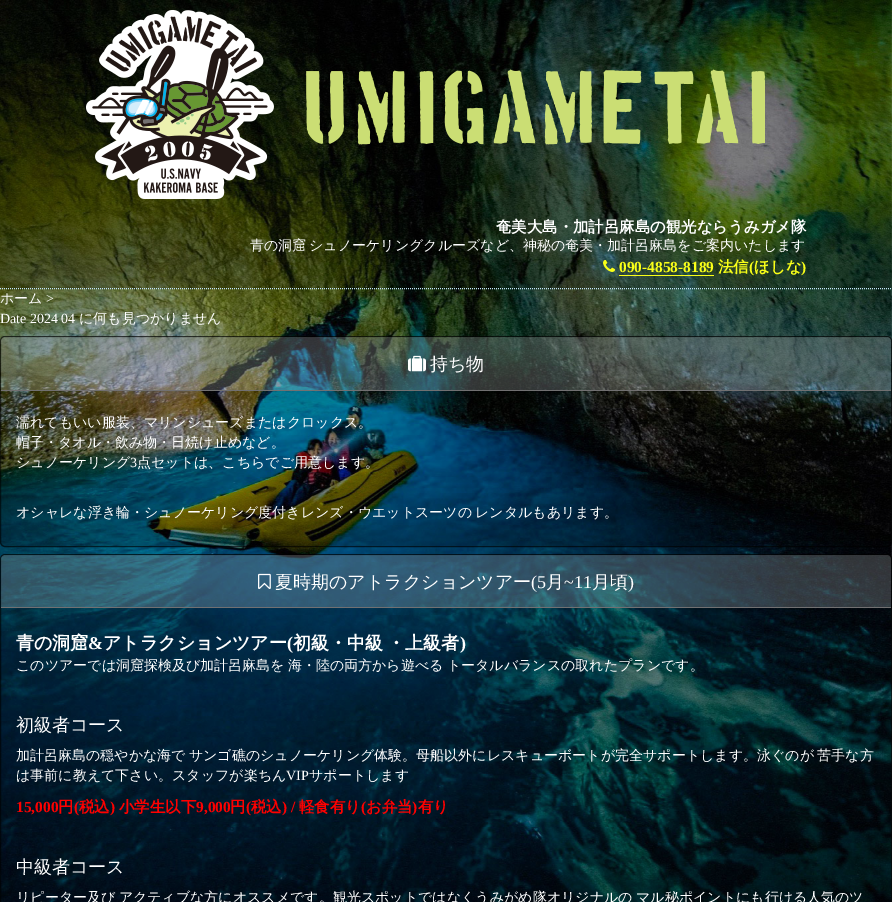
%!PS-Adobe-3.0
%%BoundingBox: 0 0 892 902
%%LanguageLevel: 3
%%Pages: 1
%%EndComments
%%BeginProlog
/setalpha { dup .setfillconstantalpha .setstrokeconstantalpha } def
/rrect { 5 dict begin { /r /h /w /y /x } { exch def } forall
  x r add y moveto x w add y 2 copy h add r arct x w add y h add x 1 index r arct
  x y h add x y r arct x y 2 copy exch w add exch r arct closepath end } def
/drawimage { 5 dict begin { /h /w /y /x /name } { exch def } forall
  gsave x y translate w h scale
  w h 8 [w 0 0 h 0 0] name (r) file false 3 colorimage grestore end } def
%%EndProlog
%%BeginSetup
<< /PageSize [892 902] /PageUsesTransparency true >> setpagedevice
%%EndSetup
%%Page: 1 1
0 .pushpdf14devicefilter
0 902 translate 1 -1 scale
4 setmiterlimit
1 setgray
0 0 892 902 rectfill
(images/1.raw) 0 0 892 902 drawimage
0.2 setalpha
0 setgray
0 0 892 289 rectfill
1 setalpha
0.773 0.918 0.992 setrgbcolor
[1 1] 0 setdash
newpath 0 288.5 moveto 892 288.5 lineto stroke
(images/2.raw) 86 10 679 189 drawimage
(images/3.raw) 603 259 13 13 drawimage
0.976 1 0.094 setrgbcolor
619 275 95 1 rectfill
0.2 setalpha
0 setgray
0 336 892 211 5 rrect fill
0.6 setalpha
[] 0 setdash
0.5 336.5 891 210 4.5 rrect stroke
0.2 setalpha
0.969 0.988 1 setrgbcolor
newpath 5 337 moveto 887 337 lineto 889 337 891 339 891 341 curveto 891 391 lineto 1 391 lineto 1 341 lineto 1 339 3 337 5 337 curveto closepath fill
1 setalpha
0.443 0.439 0.443 setrgbcolor
1 390 890 1 rectfill
(images/4.raw) 408 355 18 17 drawimage
0.2 setalpha
0 setgray
0 554 892 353 5 rrect fill
0.6 setalpha
0.5 554.5 891 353 4.5 rrect stroke
0.2 setalpha
0.969 0.988 1 setrgbcolor
newpath 5 555 moveto 887 555 lineto 889 555 891 557 891 559 curveto 891 608 lineto 1 608 lineto 1 559 lineto 1 557 3 555 5 555 curveto closepath fill
1 setalpha
0.443 0.439 0.443 setrgbcolor
1 607 890 1 rectfill
(images/5.raw) 258 573 13 16 drawimage
/WenQuanYiZenHei-Bold [15.4 0 0 -15.4 0 0] selectfont
1 setgray
496 232 moveto (奄美大島・加計呂麻島の観光ならうみガメ隊) show
/WenQuanYiZenHei-Medium [14 0 0 -14 0 0] selectfont
250 250 moveto (青の洞窟) show
309 250 moveto (シュノーケリングクルーズなど、神秘の奄美・加計呂麻島をご案内いたします) show
/LiberationSerif-Bold [15.4 0 0 -15.4 0 0] selectfont
0.976 1 0.094 setrgbcolor
619 272 moveto (090-4858-8189) show
/WenQuanYiZenHei-Bold [15.4 0 0 -15.4 0 0] selectfont
718 272 moveto (法信) show
/LiberationSerif-Bold [15.4 0 0 -15.4 0 0] selectfont
749 272 moveto (\() show
/WenQuanYiZenHei-Bold [15.4 0 0 -15.4 0 0] selectfont
754 272 moveto (ほしな) show
/LiberationSerif-Bold [15.4 0 0 -15.4 0 0] selectfont
801 272 moveto (\)) show
/WenQuanYiZenHei-Medium [14 0 0 -14 0 0] selectfont
1 setgray
0 303 moveto (ホーム) show
/LiberationSerif-Regular [14 0 0 -14 0 0] selectfont
46 303 moveto (>) show
0 323 moveto (Date 2024 04) show
/WenQuanYiZenHei-Medium [14 0 0 -14 0 0] selectfont
79 323 moveto (に何も見つかりません) show
/WenQuanYiZenHei-Medium [18 0 0 -18 0 0] selectfont
430 370 moveto (持ち物) show
/WenQuanYiZenHei-Medium [14 0 0 -14 0 0] selectfont
16 427 moveto (濡れてもいい服装、マリンシューズまたはクロックス。) show
16 447 moveto (帽子・タオル・飲み物・日焼け止めなど。) show
16 467 moveto (シュノーケリング) show
/LiberationSerif-Regular [14 0 0 -14 0 0] selectfont
130 467 moveto (3) show
/WenQuanYiZenHei-Medium [14 0 0 -14 0 0] selectfont
137 467 moveto (点セットは、こちらでご用意します。) show
16 517 moveto -1 0 32 (オシャレな浮き輪・シュノーケリング度付きレンズ・ウエットスーツの レンタルもあリます。) widthshow
/WenQuanYiZenHei-Medium [18 0 0 -18 0 0] selectfont
275 588 moveto (夏時期のアトラクションツアー) show
/LiberationSerif-Regular [18 0 0 -18 0 0] selectfont
531 588 moveto (\(5) show
/WenQuanYiZenHei-Medium [18 0 0 -18 0 0] selectfont
546 588 moveto (月) show
/LiberationSerif-Regular [18 0 0 -18 0 0] selectfont
564 588 moveto (~11) show
/WenQuanYiZenHei-Medium [18 0 0 -18 0 0] selectfont
592 588 moveto (月頃) show
/LiberationSerif-Regular [18 0 0 -18 0 0] selectfont
628 588 moveto (\)) show
/WenQuanYiZenHei-Bold [18 0 0 -18 0 0] selectfont
16 649 moveto (青の洞窟) show
/LiberationSerif-Bold [18 0 0 -18 0 0] selectfont
88 649 moveto (&) show
/WenQuanYiZenHei-Bold [18 0 0 -18 0 0] selectfont
103 649 moveto (アトラクションツアー) show
/LiberationSerif-Bold [18 0 0 -18 0 0] selectfont
287 649 moveto (\() show
/WenQuanYiZenHei-Bold [18 0 0 -18 0 0] selectfont
293 649 moveto -1 0 32 (初級・中級 ・上級者) widthshow
/LiberationSerif-Bold [18 0 0 -18 0 0] selectfont
460 649 moveto (\)) show
/WenQuanYiZenHei-Medium [14 0 0 -14 0 0] selectfont
16 670 moveto -1 0 32 (このツアーでは洞窟探検及び加計呂麻島を 海・陸の両方から遊べる トータルバランスの取れたプランです。) widthshow
/WenQuanYiZenHei-Medium [18 0 0 -18 0 0] selectfont
16 731 moveto (初級者コース) show
/WenQuanYiZenHei-Medium [14 0 0 -14 0 0] selectfont
16 760 moveto -1 0 32 (加計呂麻島の穏やかな海で サンゴ礁のシュノーケリング体験。母船以外にレスキューボートが完全サポートします。泳ぐのが 苦手な方) widthshow
16 780 moveto (は事前に教えて下さい。スタッフが楽ちん) show
/LiberationSerif-Regular [14 0 0 -14 0 0] selectfont
286 780 moveto (VIP) show
/WenQuanYiZenHei-Medium [14 0 0 -14 0 0] selectfont
309 780 moveto (サポートします) show
/LiberationSerif-Bold [15.4 0 0 -15.4 0 0] selectfont
1 0 0 setrgbcolor
16 812 moveto (15,000) show
/WenQuanYiZenHei-Bold [15.4 0 0 -15.4 0 0] selectfont
58 812 moveto (円) show
/LiberationSerif-Bold [15.4 0 0 -15.4 0 0] selectfont
74 812 moveto (\() show
/WenQuanYiZenHei-Bold [15.4 0 0 -15.4 0 0] selectfont
79 812 moveto (税込) show
/LiberationSerif-Bold [15.4 0 0 -15.4 0 0] selectfont
110 812 moveto (\)) show
/WenQuanYiZenHei-Bold [15.4 0 0 -15.4 0 0] selectfont
119 812 moveto (小学生以下) show
/LiberationSerif-Bold [15.4 0 0 -15.4 0 0] selectfont
196 812 moveto (9,000) show
/WenQuanYiZenHei-Bold [15.4 0 0 -15.4 0 0] selectfont
230 812 moveto (円) show
/LiberationSerif-Bold [15.4 0 0 -15.4 0 0] selectfont
246 812 moveto (\() show
/WenQuanYiZenHei-Bold [15.4 0 0 -15.4 0 0] selectfont
251 812 moveto (税込) show
/LiberationSerif-Bold [15.4 0 0 -15.4 0 0] selectfont
282 812 moveto (\) /) show
/WenQuanYiZenHei-Bold [15.4 0 0 -15.4 0 0] selectfont
299 812 moveto (軽食有り) show
/LiberationSerif-Bold [15.4 0 0 -15.4 0 0] selectfont
361 812 moveto (\() show
/WenQuanYiZenHei-Bold [15.4 0 0 -15.4 0 0] selectfont
366 812 moveto (お弁当) show
/LiberationSerif-Bold [15.4 0 0 -15.4 0 0] selectfont
412 812 moveto (\)) show
/WenQuanYiZenHei-Bold [15.4 0 0 -15.4 0 0] selectfont
418 812 moveto (有り) show
/WenQuanYiZenHei-Medium [18 0 0 -18 0 0] selectfont
1 setgray
16 873 moveto (中級者コース) show
/WenQuanYiZenHei-Medium [14 0 0 -14 0 0] selectfont
16 902 moveto -1 0 32 (リピーター及び アクティブな方にオススメです。観光スポットではなくうみがめ隊オリジナルの マル秘ポイントにも行ける人気のツ) widthshow
.poppdf14devicefilter showpage
%%EOF
